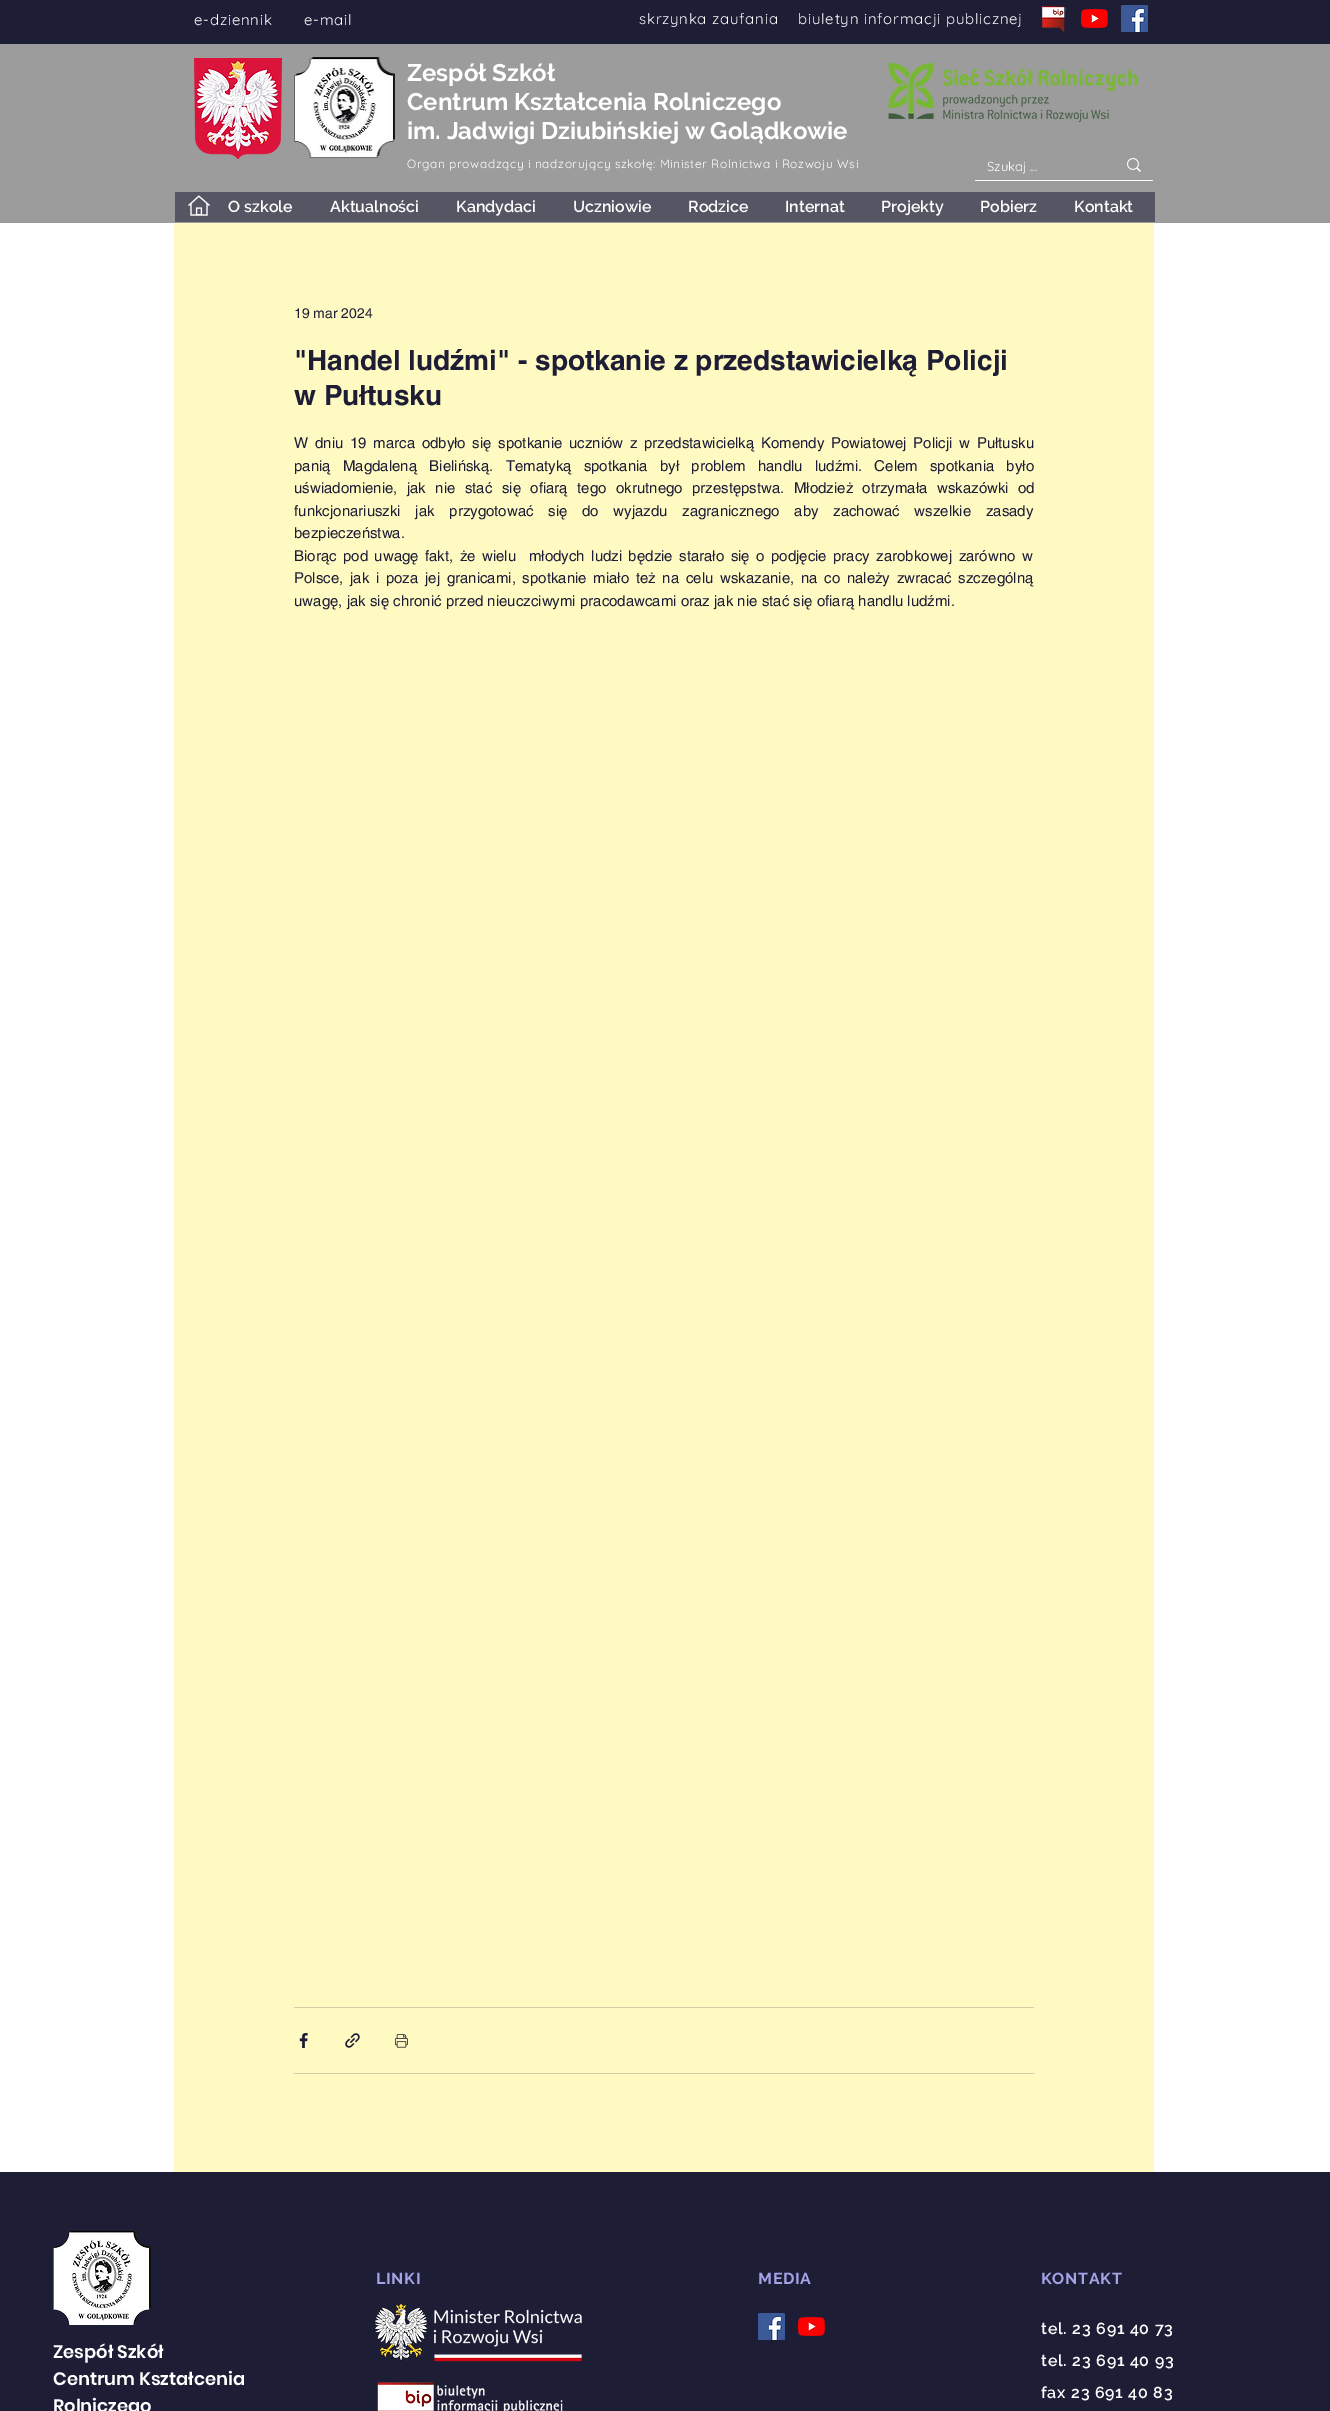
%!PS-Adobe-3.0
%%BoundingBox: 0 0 1330 2411
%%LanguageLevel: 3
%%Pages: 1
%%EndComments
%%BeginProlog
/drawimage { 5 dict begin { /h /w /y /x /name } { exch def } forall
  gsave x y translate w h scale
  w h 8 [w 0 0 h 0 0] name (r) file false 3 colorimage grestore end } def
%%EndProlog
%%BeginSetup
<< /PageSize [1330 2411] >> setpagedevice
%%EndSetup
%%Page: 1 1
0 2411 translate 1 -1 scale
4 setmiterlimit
1 setgray
0 0 1330 2411 rectfill
0.114 0.114 0.212 setrgbcolor
0 0 1330 44 rectfill
(images/1.raw) 1042 6 24 26 drawimage
(images/2.raw) 1081 8 27 21 drawimage
(images/3.raw) 1121 5 27 27 drawimage
0.612 setgray
0 44 1330 179 rectfill
(images/4.raw) 294 57 101 101 drawimage
(images/5.raw) 194 58 88 101 drawimage
(images/6.raw) 888 63 250 60 drawimage
1 setgray
975 180 178 1 rectfill
(images/7.raw) 1127 158 14 14 drawimage
0.333 0.333 0.388 setrgbcolor
175 192 980 30 rectfill
(images/8.raw) 188 195 22 21 drawimage
1 0.976 0.761 setrgbcolor
174 223 980 1949 rectfill
0.824 0.804 0.651 setrgbcolor
294 2007 740 1 rectfill
(images/9.raw) 299 2033 9 15 drawimage
(images/10.raw) 345 2033 15 15 drawimage
(images/11.raw) 395 2034 13 14 drawimage
294 2073 740 1 rectfill
0.114 0.114 0.212 setrgbcolor
0 2172 1330 239 rectfill
(images/12.raw) 53 2231 98 94 drawimage
(images/13.raw) 374 2303 208 59 drawimage
(images/14.raw) 377 2382 186 29 drawimage
(images/3.raw) 758 2313 27 27 drawimage
(images/2.raw) 798 2316 27 21 drawimage
/Quicksand-Regular [15 0 0 -15 0 0] selectfont
1 setgray
194 25 moveto 0.75 0 (e-dziennik) ashow
639 24 moveto 0.75 0 (skrzynka zaufania) ashow
798 24 moveto 0.75 0 (biuletyn informacji publicznej) ashow
304 25 moveto 0.75 0 (e-mail) ashow
/Raleway-Bold [24 0 0 -24 0 0] selectfont
407 81 moveto (Zespół Szkół) show
407 110 moveto (Centrum Kształcenia Rolniczego) show
407 139 moveto (im. Jadwigi Dziubińskiej w Golądkowie) show
/Quicksand-Regular [12 0 0 -12 0 0] selectfont
407 168 moveto 0.6 0 (Organ prowadzący i nadzorujący szkołę: Minister Rolnictwa i Rozwoju Wsi) ashow
/Quicksand-Regular [13 0 0 -13 0 0] selectfont
987 171 moveto (Szukaj ...) show
/Raleway-SemiBold [16 0 0 -16 0 0] selectfont
228 212 moveto (O szkole) show
330 212 moveto (Aktualności) show
456 212 moveto (Kandydaci) show
573 212 moveto (Uczniowie) show
688 212 moveto (Rodzice) show
785 212 moveto (Internat) show
881 212 moveto (Projekty) show
980 212 moveto (Pobierz) show
1074 212 moveto (Kontakt) show
/helvetica-Regular [14 0 0 -14 0 0] selectfont
0.114 0.114 0.212 setrgbcolor
294 318 moveto (19 mar 2024) show
/helvetica-Bold [28 0 0 -28 0 0] selectfont
294 370 moveto ("Handel ludźmi" - spotkanie z przedstawicielką Policji) show
294 405 moveto (w Pułtusku) show
/helvetica-Regular [15 0 0 -15 0 0] selectfont
294 448 moveto 2.5 0 32 (W dniu 19 marca odbyło się spotkanie uczniów z przedstawicielką Komendy Powiatowej Policji w Pułtusku) widthshow
294 471 moveto 8 0 32 (panią Magdaleną Bielińską. Tematyką spotkania był problem handlu ludźmi. Celem spotkania było) widthshow
294 493 moveto 5.25 0 32 (uświadomienie, jak nie stać się ofiarą tego okrutnego przestępstwa. Młodzież otrzymała wskazówki od) widthshow
294 516 moveto 10.5 0 32 (funkcjonariuszki jak przygotować się do wyjazdu zagranicznego aby zachować wszelkie zasady) widthshow
294 538 moveto (bezpieczeństwa.) show
294 561 moveto 2.25 0 32 (Biorąc pod uwagę fakt, że wielu  młodych ludzi będzie starało się o podjęcie pracy zarobkowej zarówno w) widthshow
294 583 moveto 2.5 0 32 (Polsce, jak i poza jej granicami, spotkanie miało też na celu wskazanie, na co należy zwracać szczególną) widthshow
294 606 moveto (uwagę, jak się chronić przed nieuczciwymi pracodawcami oraz jak nie stać się ofiarą handlu ludźmi.) show
/Poppins-SemiBold [18 0 0 -18 0 0] selectfont
1 setgray
53 2358 moveto (Zespół Szkół) show
53 2385 moveto (Centrum Kształcenia) show
53 2412 moveto (Rolniczego) show
/Raleway-Bold [16 0 0 -16 0 0] selectfont
0.643 0.639 0.906 setrgbcolor
376 2284 moveto 0.75 0 (LINKI) ashow
758 2284 moveto 0.75 0 (MEDIA) ashow
1041 2284 moveto 0.75 0 (KONTAKT) ashow
/Raleway-SemiBold [16 0 0 -16 0 0] selectfont
1 setgray
1041 2334 moveto 0.75 0 (tel. 23 691 40 73) ashow
1041 2366 moveto 0.75 0 (tel. 23 691 40 93) ashow
1041 2398 moveto 0.75 0 (fax 23 691 40 83) ashow
showpage
%%EOF
